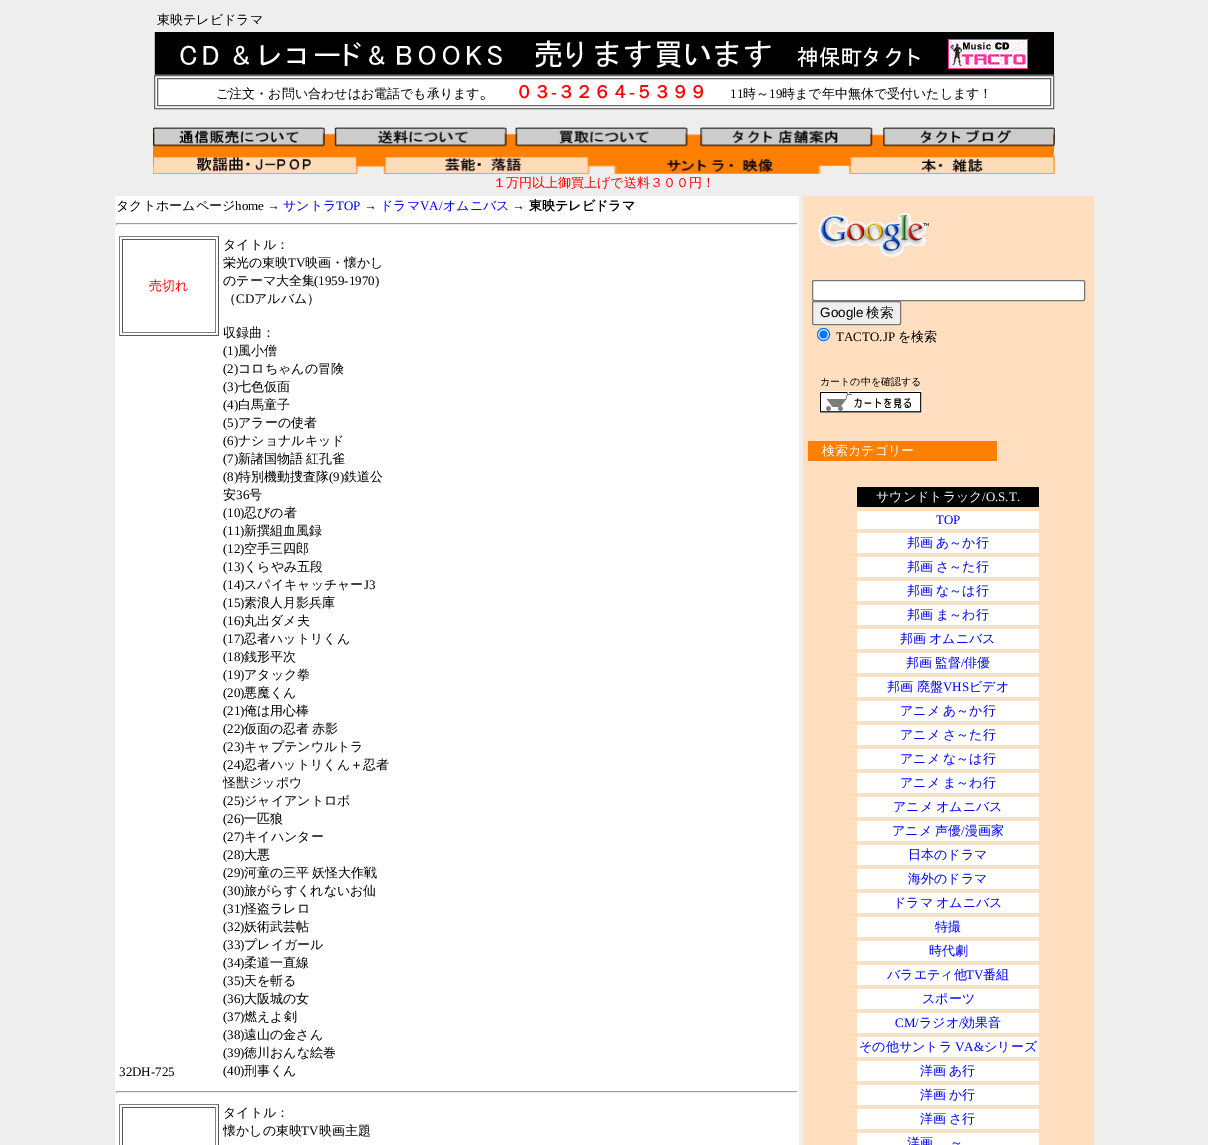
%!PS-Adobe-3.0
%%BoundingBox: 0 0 1208 1145
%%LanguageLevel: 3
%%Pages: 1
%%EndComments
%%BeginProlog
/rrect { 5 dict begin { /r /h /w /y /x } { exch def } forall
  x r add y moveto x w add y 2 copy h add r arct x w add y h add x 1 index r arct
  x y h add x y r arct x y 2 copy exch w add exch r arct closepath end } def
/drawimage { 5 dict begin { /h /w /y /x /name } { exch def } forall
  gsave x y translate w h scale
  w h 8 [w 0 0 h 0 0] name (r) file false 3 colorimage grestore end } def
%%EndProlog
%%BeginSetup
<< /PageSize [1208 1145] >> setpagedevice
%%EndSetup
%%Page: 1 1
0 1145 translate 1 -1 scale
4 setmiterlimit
0.933 setgray
0 0 1208 1145 rectfill
(images/1.raw) 154 32 900 43 drawimage
1 setgray
newpath 154.5 75.5 moveto 1053.5 75.5 lineto 1053.5 108.5 lineto 154.5 108.5 lineto closepath gsave fill grestore
0.4 setgray
stroke
157.5 78.5 893 27 rectstroke
(images/2.raw) 153 127 902 47 drawimage
1 setgray
115 196 684 949 rectfill
0.624 setgray
116 223 682 1 rectfill
0.933 setgray
797 223 1 2 rectfill
116 224 682 1 rectfill
0.624 setgray
116 223 1 2 rectfill
0.502 setgray
119 236 100 1 rectfill
0.333 setgray
218 236 1 100 rectfill
119 335 100 1 rectfill
0.502 setgray
119 236 1 100 rectfill
0.333 setgray
122 239 94 1 rectfill
0.502 setgray
215 239 1 94 rectfill
122 332 94 1 rectfill
0.333 setgray
122 239 1 94 rectfill
0.624 setgray
116 1091 682 1 rectfill
0.933 setgray
797 1091 1 2 rectfill
116 1092 682 1 rectfill
0.624 setgray
116 1091 1 2 rectfill
0.502 setgray
119 1104 100 1 rectfill
0.333 setgray
218 1104 1 41 rectfill
0.502 setgray
119 1104 1 41 rectfill
0.333 setgray
122 1107 94 1 rectfill
0.502 setgray
215 1107 1 38 rectfill
0.333 setgray
122 1107 1 38 rectfill
1 0.875 0.749 setrgbcolor
803 196 291 949 rectfill
(images/3.raw) 818 213 111 44 drawimage
1 setgray
812.5 280.5 272 20 1.5 rrect gsave fill grestore
0.463 setgray
stroke
0.937 setgray
812.5 301.5 88 23 1.5 rrect gsave fill grestore
0.463 setgray
stroke
1 setgray
newpath 823.5 334.5 6 0 360 arc closepath gsave fill grestore
0 0.459 1 setrgbcolor
stroke
newpath 823.5 334.5 4 0 360 arc closepath fill
(images/4.raw) 820 391 102 22 drawimage
1 0.502 0 setrgbcolor
808 441 189 20 rectfill
0 setgray
857 487 182 20 rectfill
1 setgray
857 511 182 18 rectfill
857 533 182 20 rectfill
857 557 182 20 rectfill
857 581 182 20 rectfill
857 605 182 20 rectfill
857 629 182 20 rectfill
857 653 182 20 rectfill
857 677 182 20 rectfill
857 701 182 20 rectfill
857 725 182 20 rectfill
857 749 182 20 rectfill
857 773 182 20 rectfill
857 797 182 20 rectfill
857 821 182 20 rectfill
857 845 182 20 rectfill
857 869 182 20 rectfill
857 893 182 20 rectfill
857 917 182 20 rectfill
857 941 182 20 rectfill
857 965 182 20 rectfill
857 989 182 20 rectfill
857 1013 182 20 rectfill
857 1037 182 20 rectfill
857 1061 182 20 rectfill
857 1085 182 20 rectfill
857 1109 182 20 rectfill
857 1133 182 12 rectfill
/WenQuanYiZenHei-Medium [13 0 0 -13 0 0] selectfont
0 setgray
157 24 moveto (東映テレビドラマ) show
216 98 moveto (ご注文・お問い合わせはお電話でも承ります) show
/WenQuanYiZenHei-Bold [18 0 0 -18 0 0] selectfont
1 0 0 setrgbcolor
515 98 moveto (０３) show
/LiberationSerif-Bold [18 0 0 -18 0 0] selectfont
551 98 moveto (-) show
/WenQuanYiZenHei-Bold [18 0 0 -18 0 0] selectfont
557 98 moveto (３２６４) show
/LiberationSerif-Bold [18 0 0 -18 0 0] selectfont
629 98 moveto (-) show
/WenQuanYiZenHei-Bold [18 0 0 -18 0 0] selectfont
635 98 moveto (５３９９) show
/LiberationSerif-Regular [13 0 0 -13 0 0] selectfont
0 setgray
730 98 moveto (11) show
/WenQuanYiZenHei-Medium [13 0 0 -13 0 0] selectfont
743 98 moveto (時～) show
/LiberationSerif-Regular [13 0 0 -13 0 0] selectfont
769 98 moveto (19) show
/WenQuanYiZenHei-Medium [13 0 0 -13 0 0] selectfont
782 98 moveto (時まで年中無休で受付いたします！) show
/WenQuanYiZenHei-Medium [18 0 0 -18 0 0] selectfont
479 98 moveto (。) show
/WenQuanYiZenHei-Medium [13 0 0 -13 0 0] selectfont
1 0 0 setrgbcolor
493 187 moveto (１万円以上御買上げで送料３００円！) show
0 setgray
116 210 moveto (タクトホームページ) show
/LiberationSerif-Regular [13 0 0 -13 0 0] selectfont
235 210 moveto (home →) show
/WenQuanYiZenHei-Medium [13 0 0 -13 0 0] selectfont
0 0 1 setrgbcolor
283 210 moveto (サントラ) show
/LiberationSerif-Regular [13 0 0 -13 0 0] selectfont
336 210 moveto (TOP) show
0 setgray
364 210 moveto (→) show
/WenQuanYiZenHei-Medium [13 0 0 -13 0 0] selectfont
0 0 1 setrgbcolor
380 210 moveto (ドラマ) show
/LiberationSerif-Regular [13 0 0 -13 0 0] selectfont
420 210 moveto (VA/) show
/WenQuanYiZenHei-Medium [13 0 0 -13 0 0] selectfont
443 210 moveto (オムニバス) show
/LiberationSerif-Regular [13 0 0 -13 0 0] selectfont
0 setgray
512 210 moveto (→) show
/WenQuanYiZenHei-Bold [13 0 0 -13 0 0] selectfont
529 210 moveto (東映テレビドラマ) show
/LiberationSerif-Regular [13 0 0 -13 0 0] selectfont
119 1076 moveto (32DH-725) show
/WenQuanYiZenHei-Medium [13 0 0 -13 0 0] selectfont
1 0 0 setrgbcolor
149 290 moveto (売切れ) show
0 setgray
223 249 moveto (タイトル：) show
223 267 moveto (栄光の東映) show
/LiberationSerif-Regular [13 0 0 -13 0 0] selectfont
288 267 moveto (TV) show
/WenQuanYiZenHei-Medium [13 0 0 -13 0 0] selectfont
305 267 moveto (映画・懐かし) show
223 285 moveto (のテーマ大全集) show
/LiberationSerif-Regular [13 0 0 -13 0 0] selectfont
314 285 moveto (\(1959-1970\)) show
/WenQuanYiZenHei-Medium [13 0 0 -13 0 0] selectfont
223 303 moveto (（) show
/LiberationSerif-Regular [13 0 0 -13 0 0] selectfont
236 303 moveto (CD) show
/WenQuanYiZenHei-Medium [13 0 0 -13 0 0] selectfont
254 303 moveto (アルバム）) show
223 337 moveto (収録曲：) show
/LiberationSerif-Regular [13 0 0 -13 0 0] selectfont
223 355 moveto (\(1\)) show
/WenQuanYiZenHei-Medium [13 0 0 -13 0 0] selectfont
238 355 moveto (風小僧) show
/LiberationSerif-Regular [13 0 0 -13 0 0] selectfont
223 373 moveto (\(2\)) show
/WenQuanYiZenHei-Medium [13 0 0 -13 0 0] selectfont
238 373 moveto (コロちゃんの冒険) show
/LiberationSerif-Regular [13 0 0 -13 0 0] selectfont
223 391 moveto (\(3\)) show
/WenQuanYiZenHei-Medium [13 0 0 -13 0 0] selectfont
238 391 moveto (七色仮面) show
/LiberationSerif-Regular [13 0 0 -13 0 0] selectfont
223 409 moveto (\(4\)) show
/WenQuanYiZenHei-Medium [13 0 0 -13 0 0] selectfont
238 409 moveto (白馬童子) show
/LiberationSerif-Regular [13 0 0 -13 0 0] selectfont
223 427 moveto (\(5\)) show
/WenQuanYiZenHei-Medium [13 0 0 -13 0 0] selectfont
238 427 moveto (アラーの使者) show
/LiberationSerif-Regular [13 0 0 -13 0 0] selectfont
223 445 moveto (\(6\)) show
/WenQuanYiZenHei-Medium [13 0 0 -13 0 0] selectfont
238 445 moveto (ナショナルキッド) show
/LiberationSerif-Regular [13 0 0 -13 0 0] selectfont
223 463 moveto (\(7\)) show
/WenQuanYiZenHei-Medium [13 0 0 -13 0 0] selectfont
238 463 moveto -1 0 32 (新諸国物語 紅孔雀) widthshow
/LiberationSerif-Regular [13 0 0 -13 0 0] selectfont
223 481 moveto (\(8\)) show
/WenQuanYiZenHei-Medium [13 0 0 -13 0 0] selectfont
238 481 moveto (特別機動捜査隊) show
/LiberationSerif-Regular [13 0 0 -13 0 0] selectfont
329 481 moveto (\(9\)) show
/WenQuanYiZenHei-Medium [13 0 0 -13 0 0] selectfont
344 481 moveto (鉄道公) show
223 499 moveto (安) show
/LiberationSerif-Regular [13 0 0 -13 0 0] selectfont
236 499 moveto (36) show
/WenQuanYiZenHei-Medium [13 0 0 -13 0 0] selectfont
249 499 moveto (号) show
/LiberationSerif-Regular [13 0 0 -13 0 0] selectfont
223 517 moveto (\(10\)) show
/WenQuanYiZenHei-Medium [13 0 0 -13 0 0] selectfont
244 517 moveto (忍びの者) show
/LiberationSerif-Regular [13 0 0 -13 0 0] selectfont
223 535 moveto (\(11\)) show
/WenQuanYiZenHei-Medium [13 0 0 -13 0 0] selectfont
244 535 moveto (新撰組血風録) show
/LiberationSerif-Regular [13 0 0 -13 0 0] selectfont
223 553 moveto (\(12\)) show
/WenQuanYiZenHei-Medium [13 0 0 -13 0 0] selectfont
244 553 moveto (空手三四郎) show
/LiberationSerif-Regular [13 0 0 -13 0 0] selectfont
223 571 moveto (\(13\)) show
/WenQuanYiZenHei-Medium [13 0 0 -13 0 0] selectfont
244 571 moveto (くらやみ五段) show
/LiberationSerif-Regular [13 0 0 -13 0 0] selectfont
223 589 moveto (\(14\)) show
/WenQuanYiZenHei-Medium [13 0 0 -13 0 0] selectfont
244 589 moveto (スパイキャッチャー) show
/LiberationSerif-Regular [13 0 0 -13 0 0] selectfont
364 589 moveto (J3) show
223 607 moveto (\(15\)) show
/WenQuanYiZenHei-Medium [13 0 0 -13 0 0] selectfont
244 607 moveto (素浪人月影兵庫) show
/LiberationSerif-Regular [13 0 0 -13 0 0] selectfont
223 625 moveto (\(16\)) show
/WenQuanYiZenHei-Medium [13 0 0 -13 0 0] selectfont
244 625 moveto (丸出ダメ夫) show
/LiberationSerif-Regular [13 0 0 -13 0 0] selectfont
223 643 moveto (\(17\)) show
/WenQuanYiZenHei-Medium [13 0 0 -13 0 0] selectfont
244 643 moveto (忍者ハットリくん) show
/LiberationSerif-Regular [13 0 0 -13 0 0] selectfont
223 661 moveto (\(18\)) show
/WenQuanYiZenHei-Medium [13 0 0 -13 0 0] selectfont
244 661 moveto (銭形平次) show
/LiberationSerif-Regular [13 0 0 -13 0 0] selectfont
223 679 moveto (\(19\)) show
/WenQuanYiZenHei-Medium [13 0 0 -13 0 0] selectfont
244 679 moveto (アタック拳) show
/LiberationSerif-Regular [13 0 0 -13 0 0] selectfont
223 697 moveto (\(20\)) show
/WenQuanYiZenHei-Medium [13 0 0 -13 0 0] selectfont
244 697 moveto (悪魔くん) show
/LiberationSerif-Regular [13 0 0 -13 0 0] selectfont
223 715 moveto (\(21\)) show
/WenQuanYiZenHei-Medium [13 0 0 -13 0 0] selectfont
244 715 moveto (俺は用心棒) show
/LiberationSerif-Regular [13 0 0 -13 0 0] selectfont
223 733 moveto (\(22\)) show
/WenQuanYiZenHei-Medium [13 0 0 -13 0 0] selectfont
244 733 moveto -1 0 32 (仮面の忍者 赤影) widthshow
/LiberationSerif-Regular [13 0 0 -13 0 0] selectfont
223 751 moveto (\(23\)) show
/WenQuanYiZenHei-Medium [13 0 0 -13 0 0] selectfont
244 751 moveto (キャプテンウルトラ) show
/LiberationSerif-Regular [13 0 0 -13 0 0] selectfont
223 769 moveto (\(24\)) show
/WenQuanYiZenHei-Medium [13 0 0 -13 0 0] selectfont
244 769 moveto (忍者ハットリくん＋忍者) show
223 787 moveto (怪獣ジッポウ) show
/LiberationSerif-Regular [13 0 0 -13 0 0] selectfont
223 805 moveto (\(25\)) show
/WenQuanYiZenHei-Medium [13 0 0 -13 0 0] selectfont
244 805 moveto (ジャイアントロボ) show
/LiberationSerif-Regular [13 0 0 -13 0 0] selectfont
223 823 moveto (\(26\)) show
/WenQuanYiZenHei-Medium [13 0 0 -13 0 0] selectfont
244 823 moveto (一匹狼) show
/LiberationSerif-Regular [13 0 0 -13 0 0] selectfont
223 841 moveto (\(27\)) show
/WenQuanYiZenHei-Medium [13 0 0 -13 0 0] selectfont
244 841 moveto (キイハンター) show
/LiberationSerif-Regular [13 0 0 -13 0 0] selectfont
223 859 moveto (\(28\)) show
/WenQuanYiZenHei-Medium [13 0 0 -13 0 0] selectfont
244 859 moveto (大悪) show
/LiberationSerif-Regular [13 0 0 -13 0 0] selectfont
223 877 moveto (\(29\)) show
/WenQuanYiZenHei-Medium [13 0 0 -13 0 0] selectfont
244 877 moveto -1 0 32 (河童の三平 妖怪大作戦) widthshow
/LiberationSerif-Regular [13 0 0 -13 0 0] selectfont
223 895 moveto (\(30\)) show
/WenQuanYiZenHei-Medium [13 0 0 -13 0 0] selectfont
244 895 moveto (旅がらすくれないお仙) show
/LiberationSerif-Regular [13 0 0 -13 0 0] selectfont
223 913 moveto (\(31\)) show
/WenQuanYiZenHei-Medium [13 0 0 -13 0 0] selectfont
244 913 moveto (怪盗ラレロ) show
/LiberationSerif-Regular [13 0 0 -13 0 0] selectfont
223 931 moveto (\(32\)) show
/WenQuanYiZenHei-Medium [13 0 0 -13 0 0] selectfont
244 931 moveto (妖術武芸帖) show
/LiberationSerif-Regular [13 0 0 -13 0 0] selectfont
223 949 moveto (\(33\)) show
/WenQuanYiZenHei-Medium [13 0 0 -13 0 0] selectfont
244 949 moveto (プレイガール) show
/LiberationSerif-Regular [13 0 0 -13 0 0] selectfont
223 967 moveto (\(34\)) show
/WenQuanYiZenHei-Medium [13 0 0 -13 0 0] selectfont
244 967 moveto (柔道一直線) show
/LiberationSerif-Regular [13 0 0 -13 0 0] selectfont
223 985 moveto (\(35\)) show
/WenQuanYiZenHei-Medium [13 0 0 -13 0 0] selectfont
244 985 moveto (天を斬る) show
/LiberationSerif-Regular [13 0 0 -13 0 0] selectfont
223 1003 moveto (\(36\)) show
/WenQuanYiZenHei-Medium [13 0 0 -13 0 0] selectfont
244 1003 moveto (大阪城の女) show
/LiberationSerif-Regular [13 0 0 -13 0 0] selectfont
223 1021 moveto (\(37\)) show
/WenQuanYiZenHei-Medium [13 0 0 -13 0 0] selectfont
244 1021 moveto (燃えよ剣) show
/LiberationSerif-Regular [13 0 0 -13 0 0] selectfont
223 1039 moveto (\(38\)) show
/WenQuanYiZenHei-Medium [13 0 0 -13 0 0] selectfont
244 1039 moveto (遠山の金さん) show
/LiberationSerif-Regular [13 0 0 -13 0 0] selectfont
223 1057 moveto (\(39\)) show
/WenQuanYiZenHei-Medium [13 0 0 -13 0 0] selectfont
244 1057 moveto (徳川おんな絵巻) show
/LiberationSerif-Regular [13 0 0 -13 0 0] selectfont
223 1075 moveto (\(40\)) show
/WenQuanYiZenHei-Medium [13 0 0 -13 0 0] selectfont
244 1075 moveto (刑事くん) show
223 1117 moveto (タイトル：) show
223 1135 moveto (懐かしの東映) show
/LiberationSerif-Regular [13 0 0 -13 0 0] selectfont
301 1135 moveto (TV) show
/WenQuanYiZenHei-Medium [13 0 0 -13 0 0] selectfont
319 1135 moveto (映画主題) show
/LiberationSans-Regular [13.5 0 0 -13.5 0 0] selectfont
820 317 moveto (Google) show
/WenQuanYiZenHei-Medium [13.5 0 0 -13.5 0 0] selectfont
866 317 moveto (検索) show
/LiberationSerif-Regular [13 0 0 -13 0 0] selectfont
836 341 moveto (TACTO.JP) show
/WenQuanYiZenHei-Medium [13 0 0 -13 0 0] selectfont
898 341 moveto (を検索) show
/WenQuanYiZenHei-Medium [10 0 0 -10 0 0] selectfont
820 385 moveto (カートの中を確認する) show
/WenQuanYiZenHei-Medium [13 0 0 -13 0 0] selectfont
1 setgray
822 455 moveto (検索カテゴリー) show
876 501 moveto (サウンドトラック) show
/LiberationSerif-Regular [13 0 0 -13 0 0] selectfont
982 501 moveto (/O.S.T.) show
0 0 1 setrgbcolor
936 524 moveto (TOP) show
/WenQuanYiZenHei-Medium [13 0 0 -13 0 0] selectfont
907 547 moveto (邦画) show
936 547 moveto (あ～か行) show
907 571 moveto (邦画) show
936 571 moveto (さ～た行) show
907 595 moveto (邦画) show
936 595 moveto (な～は行) show
907 619 moveto (邦画) show
936 619 moveto (ま～わ行) show
900 643 moveto (邦画) show
929 643 moveto (オムニバス) show
906 667 moveto (邦画) show
935 667 moveto (監督) show
/LiberationSerif-Regular [13 0 0 -13 0 0] selectfont
961 667 moveto (/) show
/WenQuanYiZenHei-Medium [13 0 0 -13 0 0] selectfont
964 667 moveto (俳優) show
887 691 moveto (邦画) show
917 691 moveto (廃盤) show
/LiberationSerif-Regular [13 0 0 -13 0 0] selectfont
943 691 moveto (VHS) show
/WenQuanYiZenHei-Medium [13 0 0 -13 0 0] selectfont
969 691 moveto (ビデオ) show
900 715 moveto (アニメ) show
943 715 moveto (あ～か行) show
900 739 moveto (アニメ) show
943 739 moveto (さ～た行) show
900 763 moveto (アニメ) show
943 763 moveto (な～は行) show
900 787 moveto (アニメ) show
943 787 moveto (ま～わ行) show
893 811 moveto (アニメ) show
936 811 moveto (オムニバス) show
892 835 moveto (アニメ) show
935 835 moveto (声優 漫画家) show
/LiberationSerif-Regular [13 0 0 -13 0 0] selectfont
961 835 moveto (/) show
/WenQuanYiZenHei-Medium [13 0 0 -13 0 0] selectfont
908 859 moveto (日本のドラマ) show
908 883 moveto (海外のドラマ) show
893 907 moveto (ドラマ) show
936 907 moveto (オムニバス) show
935 931 moveto (特撮) show
929 955 moveto (時代劇) show
887 979 moveto (バラエティ他) show
/LiberationSerif-Regular [13 0 0 -13 0 0] selectfont
966 979 moveto (TV) show
/WenQuanYiZenHei-Medium [13 0 0 -13 0 0] selectfont
983 979 moveto (番組) show
922 1003 moveto (スポーツ) show
/LiberationSerif-Regular [13 0 0 -13 0 0] selectfont
895 1027 moveto (CM/) show
/WenQuanYiZenHei-Medium [13 0 0 -13 0 0] selectfont
919 1027 moveto (ラジオ) show
/LiberationSerif-Regular [13 0 0 -13 0 0] selectfont
959 1027 moveto (/) show
/WenQuanYiZenHei-Medium [13 0 0 -13 0 0] selectfont
962 1027 moveto (効果音) show
859 1051 moveto (その他サントラ) show
/LiberationSerif-Regular [13 0 0 -13 0 0] selectfont
955 1051 moveto (VA&) show
/WenQuanYiZenHei-Medium [13 0 0 -13 0 0] selectfont
984 1051 moveto (シリーズ) show
920 1075 moveto (洋画) show
949 1075 moveto (あ行) show
920 1099 moveto (洋画) show
949 1099 moveto (か行) show
920 1123 moveto (洋画) show
949 1123 moveto (さ行) show
907 1147 moveto (洋画) show
950 1147 moveto (～) show
showpage
%%EOF
